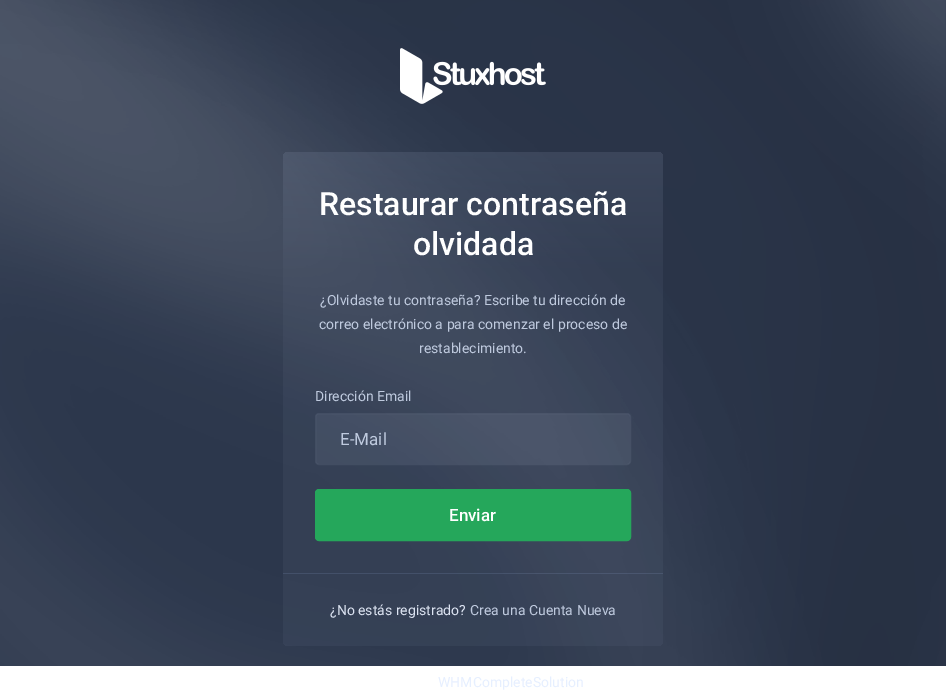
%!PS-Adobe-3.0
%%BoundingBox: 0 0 946 698
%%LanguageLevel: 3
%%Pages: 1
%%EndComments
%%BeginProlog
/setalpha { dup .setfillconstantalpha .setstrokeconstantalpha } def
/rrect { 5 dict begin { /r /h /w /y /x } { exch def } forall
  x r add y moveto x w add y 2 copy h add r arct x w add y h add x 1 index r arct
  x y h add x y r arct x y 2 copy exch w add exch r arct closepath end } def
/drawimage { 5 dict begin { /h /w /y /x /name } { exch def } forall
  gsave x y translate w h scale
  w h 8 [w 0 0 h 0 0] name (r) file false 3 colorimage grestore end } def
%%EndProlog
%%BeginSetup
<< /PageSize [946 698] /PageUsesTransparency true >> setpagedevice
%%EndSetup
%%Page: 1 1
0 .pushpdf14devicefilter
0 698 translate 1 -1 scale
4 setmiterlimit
0.173 0.216 0.298 setrgbcolor
0 0 946 698 rectfill
(images/1.raw) 0 0 946 666 drawimage
(images/2.raw) 400 48 146 56 drawimage
0.16 setalpha
gsave 283 152 380 494 6 rrect clip newpath
<< /ShadingType 2 /ColorSpace /DeviceRGB /Coords [473 152 473 646] /Extend [true true] /Function << /FunctionType 3 /Domain [0 1] /Functions [<< /FunctionType 2 /Domain [0 1] /C0 [0.592 0.643 0.745] /C1 [0.365 0.412 0.502] /N 1 >> << /FunctionType 2 /Domain [0 1] /C0 [0.365 0.412 0.502] /C1 [0.365 0.412 0.502] /N 1 >>] /Bounds [0.24] /Encode [0 1 0 1] >> >> shfill grestore
0.08 setalpha
0.878 0.922 1 setrgbcolor
316 414 314 50 3 rrect fill
315.5 413.5 315 51 3.5 rrect stroke
1 setalpha
0.145 0.655 0.357 setrgbcolor
315.5 489.5 315 51 3.5 rrect gsave fill grestore
stroke
0.12 setalpha
0.698 0.8 1 setrgbcolor
283 573 380 1 rectfill
1 setalpha
1 setgray
0 666 946 32 rectfill
/Roboto-Medium [32 0 0 -32 0 0] selectfont
319 215 moveto (Restaurar contraseña) show
413 255 moveto (olvidada) show
/Roboto-Regular [14 0 0 -14 0 0] selectfont
0.749 0.792 0.871 setrgbcolor
320 305 moveto (¿Olvidaste tu contraseña? Escribe tu dirección de) show
319 329 moveto (correo electrónico a para comenzar el proceso de) show
419 353 moveto (restablecimiento.) show
315 401 moveto (Dirección Email) show
/Roboto-Regular [17 0 0 -17 0 0] selectfont
340 445 moveto (E-Mail) show
/Roboto-Medium [17 0 0 -17 0 0] selectfont
1 setgray
449 521 moveto (Enviar) show
/Roboto-Regular [14 0 0 -14 0 0] selectfont
0.863 0.89 0.945 setrgbcolor
330 615 moveto (¿No estás registrado?) show
0.749 0.792 0.871 setrgbcolor
470 615 moveto (Crea una Cuenta Nueva) show
0.902 0.937 1 setrgbcolor
438 687 moveto (WHMCompleteSolution) show
.poppdf14devicefilter showpage
%%EOF
